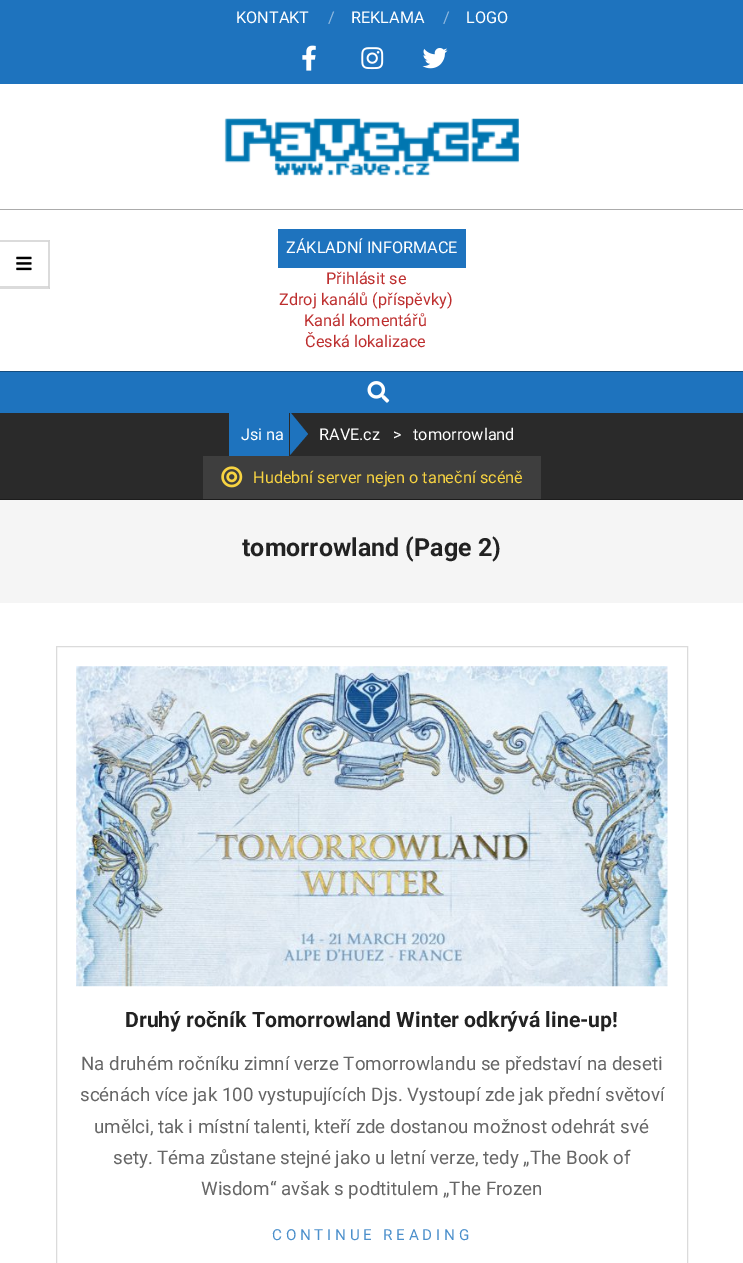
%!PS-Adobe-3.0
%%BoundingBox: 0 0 743 1263
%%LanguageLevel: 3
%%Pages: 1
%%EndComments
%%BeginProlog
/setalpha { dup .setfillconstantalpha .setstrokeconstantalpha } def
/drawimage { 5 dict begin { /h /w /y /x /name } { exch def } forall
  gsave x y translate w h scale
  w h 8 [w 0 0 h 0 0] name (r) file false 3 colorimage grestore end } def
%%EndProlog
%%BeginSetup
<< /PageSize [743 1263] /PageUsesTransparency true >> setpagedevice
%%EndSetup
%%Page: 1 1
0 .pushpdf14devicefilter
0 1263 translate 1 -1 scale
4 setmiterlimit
1 setgray
0 0 743 1263 rectfill
0.118 0.451 0.745 setrgbcolor
0 0 743 84 rectfill
(images/1.raw) 302 45 14 26 drawimage
(images/2.raw) 361 47 23 23 drawimage
(images/3.raw) 422 48 26 21 drawimage
(images/4.raw) 224 118 295 58 drawimage
0.671 setgray
0 209 743 1 rectfill
0.118 0.451 0.745 setrgbcolor
278 229 188 39 rectfill
0 372 743 41 rectfill
0.859 setgray
newpath 0 240 moveto 50 240 lineto 48 242 lineto 0 242 lineto closepath fill
0.14 setalpha
0 setgray
newpath 50 240 moveto 50 289 lineto 48 286 lineto 48 242 lineto closepath fill
newpath 50 289 moveto 0 289 lineto 0 286 lineto 48 286 lineto closepath fill
1 setalpha
(images/5.raw) 16 256 16 15 drawimage
0.078 0.302 0.498 setrgbcolor
0 371 743 1 rectfill
(images/6.raw) 367 381 23 22 drawimage
0.165 setgray
0 413 743 86 rectfill
0.11 setgray
0 499 743 1 rectfill
0.118 0.451 0.745 setrgbcolor
229 413 60 43 rectfill
newpath 290 455 moveto 290 412 lineto 308 434 lineto closepath fill
0.243 setgray
203 456 338 43 rectfill
(images/7.raw) 221 466 22 22 drawimage
0.961 setgray
0 500 743 103 rectfill
0.859 setgray
56.5 646.5 631 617 rectstroke
(images/8.raw) 76 666 592 321 drawimage
/Roboto-Regular [16.25 0 0 -16.25 0 0] selectfont
1 setgray
236 23 moveto (KONTAKT) show
0.561 0.725 0.875 setrgbcolor
328 23 moveto (/) show
1 setgray
351 23 moveto (REKLAMA) show
0.561 0.725 0.875 setrgbcolor
443 23 moveto (/) show
1 setgray
466 23 moveto (LOGO) show
286 253 moveto (ZÁKLADNÍ INFORMACE) show
0.741 0.18 0.18 setrgbcolor
326 284 moveto (Přihlásit se) show
279 305 moveto (Zdroj kanálů \(příspěvky\)) show
304 326 moveto (Kanál komentářů) show
305 347 moveto (Česká lokalizace) show
1 setgray
241 440 moveto (Jsi na) show
319 440 moveto (RAVE.cz) show
393 440 moveto (>) show
413 440 moveto (tomorrowland) show
0.969 0.827 0.255 setrgbcolor
253 483 moveto (Hudební server nejen o taneční scéně) show
/Roboto-Bold [25 0 0 -25 0 0] selectfont
0.133 setgray
242 556 moveto (tomorrowland \(Page 2\)) show
/Roboto-Bold [21.25 0 0 -21.25 0 0] selectfont
125 1027 moveto (Druhý ročník Tomorrowland Winter odkrývá line-up!) show
/Roboto-Regular [18.75 0 0 -18.75 0 0] selectfont
0.4 setgray
81 1070 moveto (Na druhém ročníku zimní verze Tomorrowlandu se představí na deseti) show
80 1101 moveto (scénách více jak 100 vystupujících Djs. Vystoupí zde jak přední světoví) show
94 1133 moveto (umělci, tak i místní talenti, kteří zde dostanou možnost odehrát své) show
113 1164 moveto (sety. Téma zůstane stejné jako u letní verze, tedy „The Book of) show
201 1195 moveto (Wisdom“ avšak s podtitulem „The Frozen) show
/Roboto-Regular [15.2 0 0 -15.2 0 0] selectfont
0.294 0.561 0.796 setrgbcolor
272 1240 moveto 3.75 0 (CONTINUE READING) ashow
.poppdf14devicefilter showpage
%%EOF
